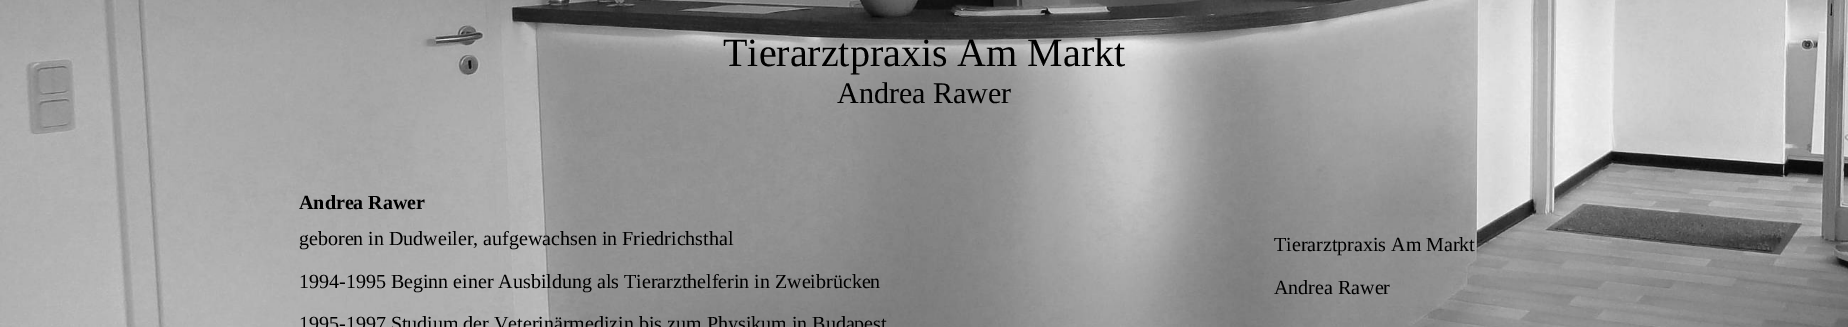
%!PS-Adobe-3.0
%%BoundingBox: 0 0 1848 327
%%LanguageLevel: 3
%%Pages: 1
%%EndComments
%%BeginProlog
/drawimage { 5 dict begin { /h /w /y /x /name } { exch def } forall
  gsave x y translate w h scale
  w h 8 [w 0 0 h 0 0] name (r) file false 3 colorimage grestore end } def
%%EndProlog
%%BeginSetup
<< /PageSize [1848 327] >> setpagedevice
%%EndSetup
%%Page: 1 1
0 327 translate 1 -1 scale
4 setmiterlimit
1 setgray
0 0 1848 327 rectfill
(images/1.raw) 0 0 1848 327 drawimage
/LiberationSerif-Regular [40 0 0 -40 0 0] selectfont
0 setgray
723 66 moveto (Tierarztpraxis Am Markt) show
/LiberationSerif-Regular [30 0 0 -30 0 0] selectfont
837 103 moveto (Andrea Rawer) show
/LiberationSerif-Bold [20 0 0 -20 0 0] selectfont
299 209 moveto (Andrea Rawer) show
/LiberationSerif-Regular [20 0 0 -20 0 0] selectfont
299 245 moveto (geboren in Dudweiler, aufgewachsen in Friedrichsthal) show
299 288 moveto (1994-1995 Beginn einer Ausbildung als Tierarzthelferin in Zweibrücken) show
299 330 moveto (1995-1997 Studium der Veterinärmedizin bis zum Physikum in Budapest) show
1274 251 moveto (Tierarztpraxis Am Markt) show
1274 294 moveto (Andrea Rawer) show
showpage
%%EOF
